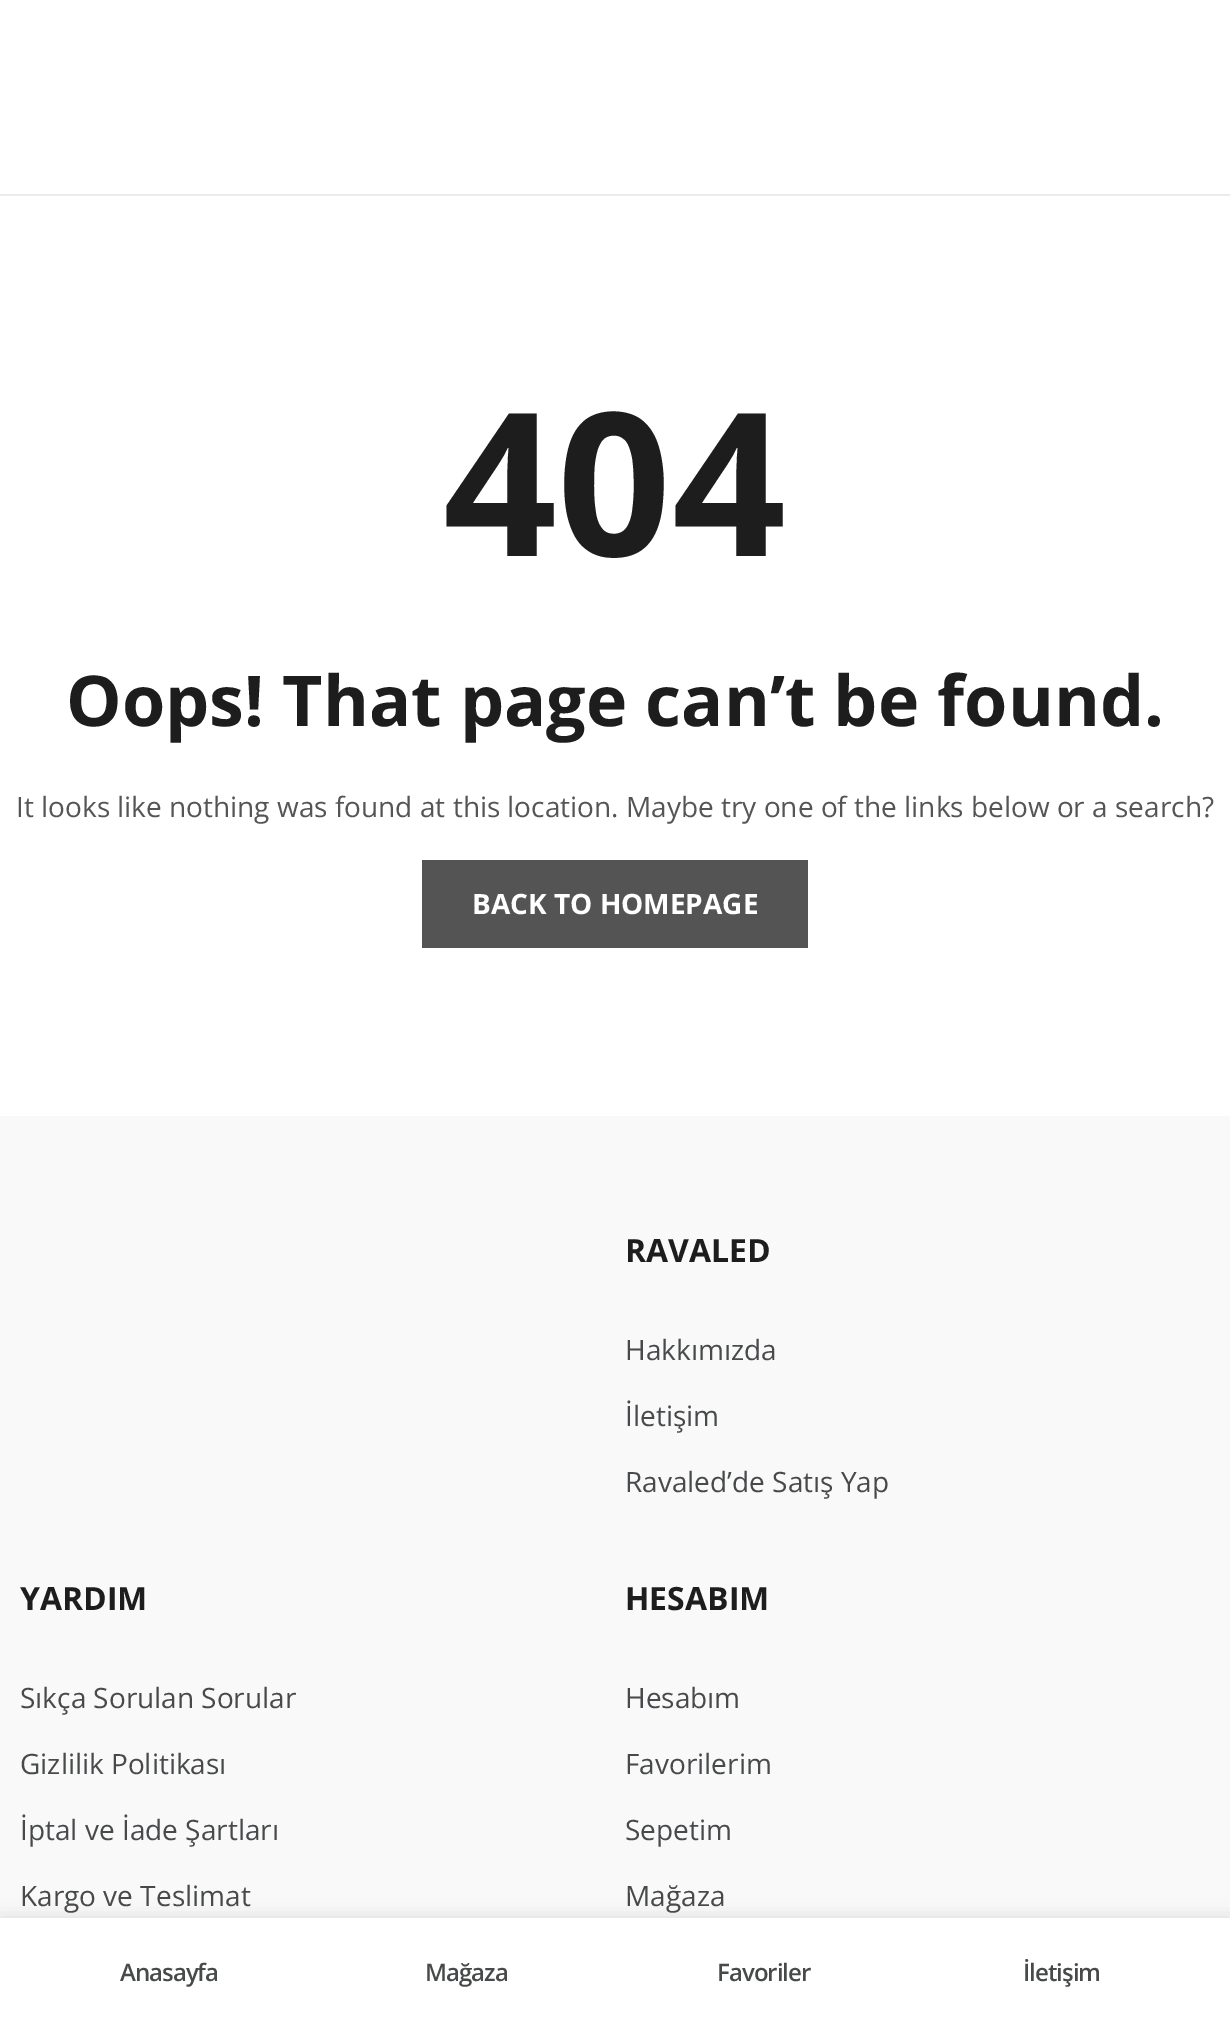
%!PS-Adobe-3.0
%%BoundingBox: 0 0 1230 2028
%%LanguageLevel: 3
%%Pages: 1
%%EndComments
%%BeginProlog
/setalpha { dup .setfillconstantalpha .setstrokeconstantalpha } def
/rrect { 5 dict begin { /r /h /w /y /x } { exch def } forall
  x r add y moveto x w add y 2 copy h add r arct x w add y h add x 1 index r arct
  x y h add x y r arct x y 2 copy exch w add exch r arct closepath end } def
/softshadow { 12 dict begin { /a /b /q /h /w /y /x } { exch def } forall gsave /was 0 def
  9 -2 -9 { dup b mul 4 div /e exch def 1 sub .425 mul 2.718 exch exp 1 add a .99 .min exch div /now exch def
    1 1 now sub 1 was sub div sub setalpha /was now def
    w h .min e 2 mul add 0 gt { x e sub y e sub w e 2 mul add h e 2 mul add
      q e add b .6 mul add w h .min 2 div e add .min 0 .max rrect fill } if } for grestore end } def
%%EndProlog
%%BeginSetup
<< /PageSize [1230 2028] /PageUsesTransparency true >> setpagedevice
%%EndSetup
%%Page: 1 1
0 .pushpdf14devicefilter
0 2028 translate 1 -1 scale
4 setmiterlimit
1 setgray
0 0 1230 2028 rectfill
0.329 setgray
422 860 386 88 rectfill
0.976 setgray
0 1116 1230 802 rectfill
0.922 setgray
0 194 1230 2 rectfill
0 setgray
0 1918 1230 110 0 9 0.12 softshadow
1 setgray
0 1918 1230 110 rectfill
/OpenSans-Bold [200 0 0 -200 0 0] selectfont
0.114 setgray
443 556 moveto (404) show
/OpenSans-Bold [70 0 0 -70 0 0] selectfont
66 726 moveto (Oops! That page can’t be found.) show
/OpenSans-Regular [28 0 0 -28 0 0] selectfont
0.333 setgray
16 817 moveto (It looks like nothing was found at this location. Maybe try one of the links below or a search?) show
/OpenSans-Bold [28 0 0 -28 0 0] selectfont
1 setgray
472 914 moveto (BACK TO HOMEPAGE) show
/OpenSans-Bold [32 0 0 -32 0 0] selectfont
0.114 setgray
625 1262 moveto (RAVALED) show
/OpenSans-Regular [28 0 0 -28 0 0] selectfont
0.278 0.286 0.29 setrgbcolor
625 1360 moveto (Hakkımızda) show
625 1426 moveto (İletişim) show
625 1492 moveto (Ravaled’de Satış Yap) show
/OpenSans-Bold [32 0 0 -32 0 0] selectfont
0.114 setgray
20 1610 moveto (YARDIM) show
/OpenSans-Regular [28 0 0 -28 0 0] selectfont
0.278 0.286 0.29 setrgbcolor
20 1708 moveto (Sıkça Sorulan Sorular) show
20 1774 moveto (Gizlilik Politikası) show
20 1840 moveto (İptal ve İade Şartları) show
20 1906 moveto (Kargo ve Teslimat) show
/OpenSans-Bold [32 0 0 -32 0 0] selectfont
0.114 setgray
625 1610 moveto (HESABIM) show
/OpenSans-Regular [28 0 0 -28 0 0] selectfont
0.278 0.286 0.29 setrgbcolor
625 1708 moveto (Hesabım) show
625 1774 moveto (Favorilerim) show
625 1840 moveto (Sepetim) show
625 1906 moveto (Mağaza) show
/OpenSans-SemiBold [24 0 0 -24 0 0] selectfont
120 1981 moveto -1 0 (Anasayfa) ashow
425 1981 moveto -1 0 (Mağaza) ashow
717 1981 moveto -1 0 (Favoriler) ashow
1023 1981 moveto -1 0 (İletişim) ashow
.poppdf14devicefilter showpage
%%EOF
